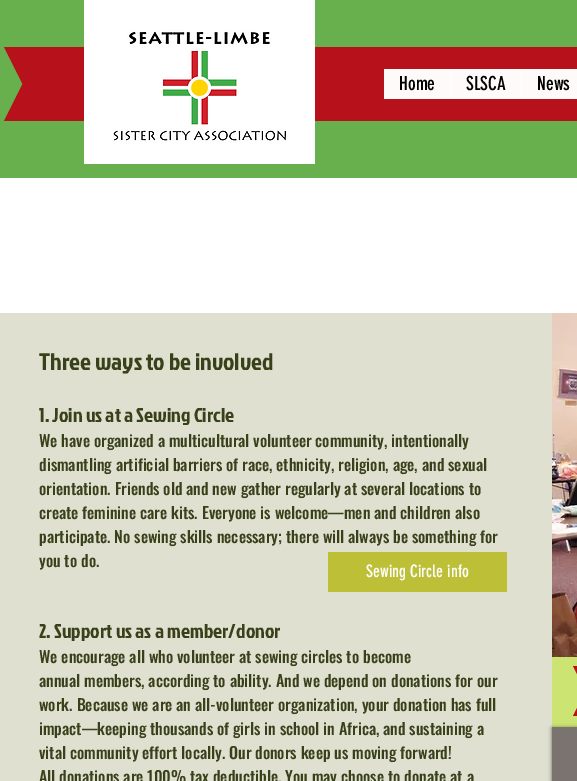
%!PS-Adobe-3.0
%%BoundingBox: 0 0 577 781
%%LanguageLevel: 3
%%Pages: 1
%%EndComments
%%BeginProlog
/setalpha { dup .setfillconstantalpha .setstrokeconstantalpha } def
/rrect { 5 dict begin { /r /h /w /y /x } { exch def } forall
  x r add y moveto x w add y 2 copy h add r arct x w add y h add x 1 index r arct
  x y h add x y r arct x y 2 copy exch w add exch r arct closepath end } def
/softshadow { 12 dict begin { /a /b /q /h /w /y /x } { exch def } forall gsave /was 0 def
  9 -2 -9 { dup b mul 4 div /e exch def 1 sub .425 mul 2.718 exch exp 1 add a .99 .min exch div /now exch def
    1 1 now sub 1 was sub div sub setalpha /was now def
    w h .min e 2 mul add 0 gt { x e sub y e sub w e 2 mul add h e 2 mul add
      q e add b .6 mul add w h .min 2 div e add .min 0 .max rrect fill } if } for grestore end } def
/drawimage { 5 dict begin { /h /w /y /x /name } { exch def } forall
  gsave x y translate w h scale
  w h 8 [w 0 0 h 0 0] name (r) file false 3 colorimage grestore end } def
%%EndProlog
%%BeginSetup
<< /PageSize [577 781] /PageUsesTransparency true >> setpagedevice
%%EndSetup
%%Page: 1 1
0 .pushpdf14devicefilter
0 781 translate 1 -1 scale
4 setmiterlimit
0.408 0.69 0.302 setrgbcolor
0 0 577 781 rectfill
gsave
4 47 478 38 rectclip
0.718 0.071 0.106 setrgbcolor
newpath 4 47 moveto 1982 47 lineto 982 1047 lineto 504 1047 lineto closepath fill
grestore
gsave
481 47 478 38 rectclip
0.718 0.071 0.106 setrgbcolor
newpath -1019 47 moveto 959 47 lineto 459 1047 lineto -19 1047 lineto closepath fill
grestore
gsave
4 84 478 37 rectclip
0.718 0.071 0.106 setrgbcolor
newpath 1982 121 moveto 4 121 lineto 504 -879 lineto 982 -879 lineto closepath fill
grestore
(images/1.raw) 84 0 231 164 drawimage
gsave
481 84 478 37 rectclip
0.718 0.071 0.106 setrgbcolor
newpath 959 121 moveto -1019 121 lineto -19 -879 lineto 459 -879 lineto closepath fill
grestore
0.996 0.98 0.98 setrgbcolor
384 69 193 30 rectfill
1 setgray
450 69 1 30 rectfill
521 69 1 30 rectfill
0 178 577 135 rectfill
0.878 0.878 0.82 setrgbcolor
0 313 552 468 rectfill
0.741 0.749 0.216 setrgbcolor
328 552 179 40 rectfill
(images/2.raw) 552 313 25 344 drawimage
0.8 0.894 0.447 setrgbcolor
552 657 25 70 rectfill
0.718 0.071 0.106 setrgbcolor
newpath 573 666 moveto 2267 666 lineto 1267 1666 lineto 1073 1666 lineto closepath 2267 716 moveto 573 716 lineto 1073 -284 lineto 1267 -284 lineto closepath fill
0 setgray
552 728 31 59 0 2 0.6 softshadow
0.482 0.451 0.435 setrgbcolor
552 727 25 54 rectfill
/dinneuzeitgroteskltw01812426-Regular [19 0 0 -19 0 0] selectfont
0 setgray
399 90 moveto (Home) show
466 90 moveto (SLSCA) show
537 90 moveto (News) show
/JockeyOne-Regular [24 0 0 -24 0 0] selectfont
0.22 0.255 0.098 setrgbcolor
39 370 moveto (Three ways to be involved) show
/JockeyOne-Regular [20 0 0 -20 0 0] selectfont
39 422 moveto (1. Join us at a Sewing Circle) show
/Oswald-Medium [16 0 0 -16 0 0] selectfont
39 447 moveto (We have organized a multicultural volunteer community, intentionally) show
39 471 moveto (dismantling artificial barriers of race, ethnicity, religion, age, and sexual) show
39 495 moveto (orientation. Friends old and new gather regularly at several locations to) show
39 519 moveto (create feminine care kits. Everyone is welcome—men and children also) show
39 543 moveto (participate. No sewing skills necessary; there will always be something for) show
39 567 moveto (you to do.) show
/JockeyOne-Regular [20 0 0 -20 0 0] selectfont
39 638 moveto (2. Support us as a member/donor) show
/Oswald-Medium [16 0 0 -16 0 0] selectfont
39 663 moveto (We encourage all who volunteer at sewing circles to become) show
39 687 moveto (annual members, according to ability. And we depend on donations for our) show
39 711 moveto (work. Because we are an all-volunteer organization, your donation has full) show
39 735 moveto (impact—keeping thousands of girls in school in Africa, and sustaining a) show
39 759 moveto (vital community effort locally. Our donors keep us moving forward!) show
39 783 moveto (All donations are 100% tax deductible. You may choose to donate at a) show
/dinneuzeitgroteskltw01812426-Regular [17 0 0 -17 0 0] selectfont
1 setgray
366 577 moveto (Sewing Circle info) show
.poppdf14devicefilter showpage
%%EOF
